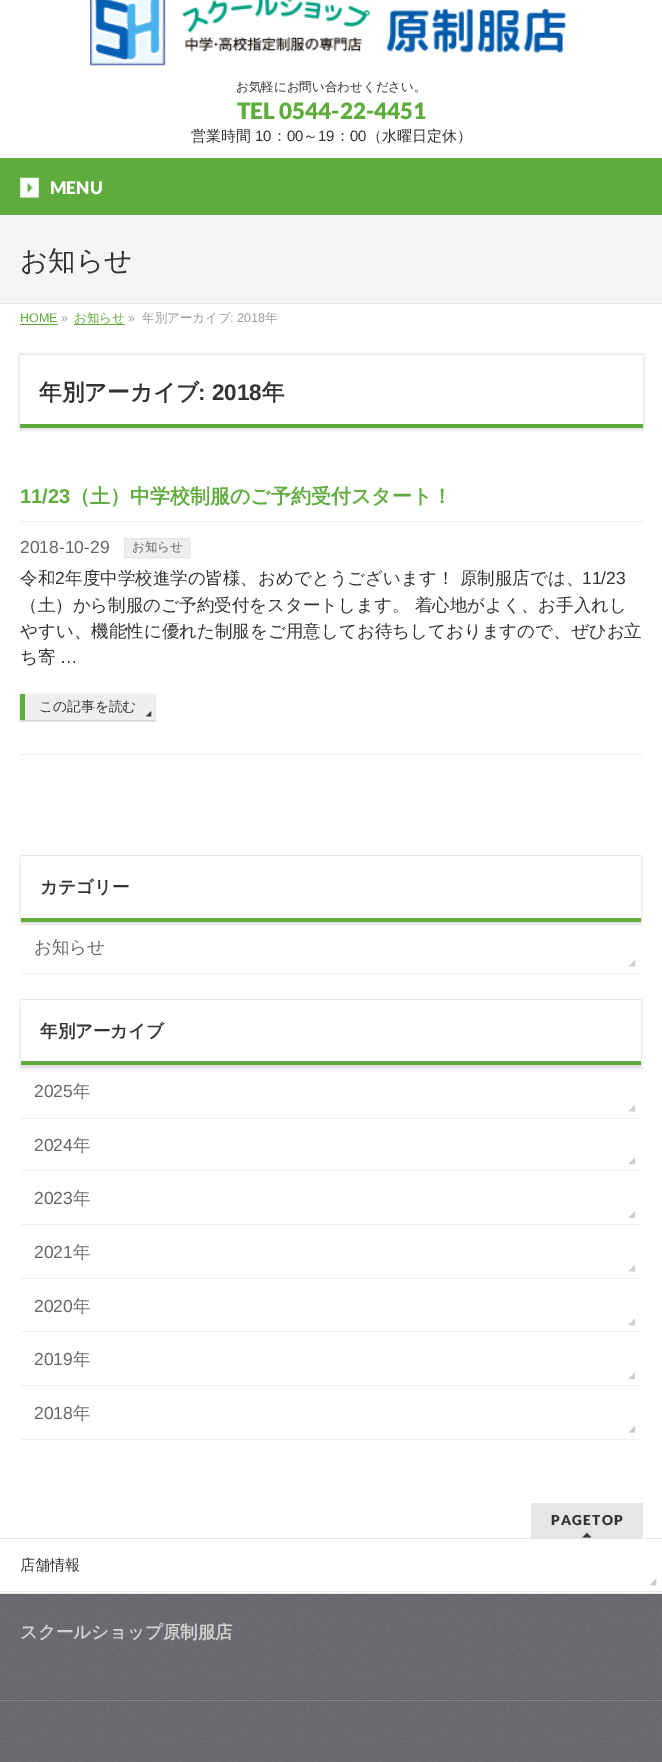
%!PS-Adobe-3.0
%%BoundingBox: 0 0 662 1762
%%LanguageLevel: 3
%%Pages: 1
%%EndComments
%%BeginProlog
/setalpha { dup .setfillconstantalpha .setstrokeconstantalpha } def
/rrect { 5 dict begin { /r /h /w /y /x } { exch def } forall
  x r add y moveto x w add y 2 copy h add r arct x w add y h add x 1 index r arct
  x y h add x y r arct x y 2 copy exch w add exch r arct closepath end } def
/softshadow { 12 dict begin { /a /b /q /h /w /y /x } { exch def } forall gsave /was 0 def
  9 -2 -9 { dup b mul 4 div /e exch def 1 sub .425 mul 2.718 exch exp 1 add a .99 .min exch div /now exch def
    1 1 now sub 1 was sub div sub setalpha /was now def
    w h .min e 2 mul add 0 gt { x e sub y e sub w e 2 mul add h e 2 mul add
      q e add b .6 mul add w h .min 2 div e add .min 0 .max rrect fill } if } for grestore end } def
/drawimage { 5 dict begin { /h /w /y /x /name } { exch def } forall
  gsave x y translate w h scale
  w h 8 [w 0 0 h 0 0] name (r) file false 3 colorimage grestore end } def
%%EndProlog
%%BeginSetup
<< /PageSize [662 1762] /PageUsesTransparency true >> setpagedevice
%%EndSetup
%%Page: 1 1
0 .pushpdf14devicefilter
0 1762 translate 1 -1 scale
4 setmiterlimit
1 setgray
0 0 662 1762 rectfill
(images/1.raw) 90 0 477 66 drawimage
0.369 0.678 0.235 setrgbcolor
0 158 662 57 rectfill
(images/2.raw) 20 177 19 21 drawimage
0.961 setgray
0 215 662 88 rectfill
0.898 setgray
0 303 662 1 rectfill
0.369 0.678 0.235 setrgbcolor
20 324 38 1 rectfill
74 324 51 1 rectfill
gsave
newpath 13 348 moveto 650 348 lineto 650 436 lineto 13 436 lineto closepath 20 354 moveto 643 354 lineto 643 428 lineto 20 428 lineto closepath eoclip newpath
0 setgray
20 355 623 74 0 2 0.2 softshadow
grestore
0.898 setgray
20 354 623 1 rectfill
0.369 0.678 0.235 setrgbcolor
20 424 623 4 rectfill
0.933 setgray
20 754 623 1 rectfill
20 521 623 1 rectfill
0.937 setgray
newpath 124.5 538.5 moveto 189.5 538.5 lineto 189.5 557.5 lineto 124.5 557.5 lineto closepath gsave fill grestore
0.898 setgray
stroke
0 setgray
20 695 135 26 0 1 0.25 softshadow
0.937 setgray
25 694 130 26 rectfill
(images/3.raw) 146 711 6 6 drawimage
0.369 0.678 0.235 setrgbcolor
20 694 5 26 rectfill
gsave
newpath 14 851 moveto 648 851 lineto 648 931 lineto 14 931 lineto closepath 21 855 moveto 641 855 lineto 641 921 lineto 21 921 lineto closepath eoclip newpath
0 setgray
21 858 620 66 0 2 0.15 softshadow
grestore
0.898 setgray
21 855 620 1 rectfill
0.369 0.678 0.235 setrgbcolor
21 918 620 4 rectfill
0.933 setgray
21 973 620 1 rectfill
(images/4.raw) 628 960 8 7 drawimage
gsave
newpath 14 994 moveto 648 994 lineto 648 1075 lineto 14 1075 lineto closepath 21 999 moveto 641 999 lineto 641 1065 lineto 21 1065 lineto closepath eoclip newpath
0 setgray
21 1001 620 67 0 2 0.15 softshadow
grestore
0.898 setgray
21 999 620 1 rectfill
0.369 0.678 0.235 setrgbcolor
21 1061 620 4 rectfill
0.933 setgray
21 1118 620 1 rectfill
(images/4.raw) 628 1105 8 7 drawimage
21 1170 620 1 rectfill
(images/5.raw) 628 1157 8 8 drawimage
21 1224 620 1 rectfill
(images/6.raw) 628 1211 8 7 drawimage
21 1278 620 1 rectfill
(images/4.raw) 628 1265 8 7 drawimage
21 1331 620 1 rectfill
(images/7.raw) 628 1319 8 7 drawimage
21 1385 620 1 rectfill
(images/5.raw) 628 1372 8 8 drawimage
21 1439 620 1 rectfill
(images/6.raw) 628 1426 8 7 drawimage
0.902 setgray
531 1503 112 35 rectfill
(images/8.raw) 582 1532 10 6 drawimage
0 1538 662 1 rectfill
0 1593 662 1 rectfill
(images/9.raw) 650 1579 7 7 drawimage
0 1591 662 1 rectfill
0.541 0.537 0.549 setrgbcolor
0 1700 662 1 rectfill
(images/10.raw) 0 1594 662 107 drawimage
0.373 0.369 0.388 setrgbcolor
0 1699 662 1 rectfill
(images/11.raw) 0 1701 662 61 drawimage
/WenQuanYiZenHei-Medium [12.5 0 0 -12.5 0 0] selectfont
0.2 setgray
236 91 moveto (お気軽にお問い合わせください。) show
/Lato-Black [22.5 0 0 -22.5 0 0] selectfont
0.369 0.678 0.235 setrgbcolor
237 119 moveto (TEL 0544-22-4451) show
/WenQuanYiZenHei-Medium [15 0 0 -15 0 0] selectfont
0.2 setgray
191 141 moveto (営業時間) show
/LiberationSans-Regular [15 0 0 -15 0 0] selectfont
255 141 moveto (10) show
/WenQuanYiZenHei-Medium [15 0 0 -15 0 0] selectfont
272 141 moveto (：) show
/LiberationSans-Regular [15 0 0 -15 0 0] selectfont
287 141 moveto (00) show
/WenQuanYiZenHei-Medium [15 0 0 -15 0 0] selectfont
303 141 moveto (～) show
/LiberationSans-Regular [15 0 0 -15 0 0] selectfont
318 141 moveto (19) show
/WenQuanYiZenHei-Medium [15 0 0 -15 0 0] selectfont
335 141 moveto (：) show
/LiberationSans-Regular [15 0 0 -15 0 0] selectfont
350 141 moveto (00) show
/WenQuanYiZenHei-Medium [15 0 0 -15 0 0] selectfont
367 141 moveto (（水曜日定休）) show
/Lato-Black [17.5 0 0 -17.5 0 0] selectfont
1 setgray
50 194 moveto (MENU) show
/WenQuanYiZenHei-Medium [27.5 0 0 -27.5 0 0] selectfont
0.2 setgray
20 270 moveto (お知らせ) show
/LiberationSans-Regular [12.5 0 0 -12.5 0 0] selectfont
0.369 0.678 0.235 setrgbcolor
20 322 moveto (HOME) show
0.6 setgray
61 322 moveto (») show
/WenQuanYiZenHei-Medium [12.5 0 0 -12.5 0 0] selectfont
0.369 0.678 0.235 setrgbcolor
74 322 moveto (お知らせ) show
/LiberationSans-Regular [12.5 0 0 -12.5 0 0] selectfont
0.6 setgray
128 322 moveto (») show
/WenQuanYiZenHei-Medium [12.5 0 0 -12.5 0 0] selectfont
142 322 moveto (年別アーカイブ) show
/LiberationSans-Regular [12.5 0 0 -12.5 0 0] selectfont
230 322 moveto (: 2018) show
/WenQuanYiZenHei-Medium [12.5 0 0 -12.5 0 0] selectfont
265 322 moveto (年) show
/WenQuanYiZenHei-Bold [22.5 0 0 -22.5 0 0] selectfont
0.2 setgray
39 400 moveto (年別アーカイブ) show
/LiberationSans-Bold [22.5 0 0 -22.5 0 0] selectfont
198 400 moveto (: 2018) show
/WenQuanYiZenHei-Bold [22.5 0 0 -22.5 0 0] selectfont
262 400 moveto (年) show
/LiberationSans-Bold [20 0 0 -20 0 0] selectfont
0.369 0.678 0.235 setrgbcolor
20 503 moveto (11/23) show
/WenQuanYiZenHei-Bold [20 0 0 -20 0 0] selectfont
70 503 moveto (（土）中学校制服のご予約受付スタート！) show
/LiberationSans-Regular [17.5 0 0 -17.5 0 0] selectfont
0.4 setgray
20 553 moveto (2018-10-29) show
/WenQuanYiZenHei-Medium [12.5 0 0 -12.5 0 0] selectfont
132 551 moveto (お知らせ) show
/WenQuanYiZenHei-Medium [17.5 0 0 -17.5 0 0] selectfont
0.2 setgray
20 584 moveto (令和) show
/LiberationSans-Regular [17.5 0 0 -17.5 0 0] selectfont
55 584 moveto (2) show
/WenQuanYiZenHei-Medium [17.5 0 0 -17.5 0 0] selectfont
65 584 moveto (年度中学校進学の皆様、おめでとうございます！ 原制服店では、) show
/LiberationSans-Regular [17.5 0 0 -17.5 0 0] selectfont
582 584 moveto (11/23) show
/WenQuanYiZenHei-Medium [17.5 0 0 -17.5 0 0] selectfont
20 611 moveto (（土）から制服のご予約受付をスタートします。 着心地がよく、お手入れし) show
20 637 moveto (やすい、機能性に優れた制服をご用意してお待ちしておりますので、ぜひお立) show
20 663 moveto (ち寄) show
/LiberationSans-Regular [17.5 0 0 -17.5 0 0] selectfont
60 663 moveto (…) show
/WenQuanYiZenHei-Medium [13.75 0 0 -13.75 0 0] selectfont
39 711 moveto (この記事を読む) show
/WenQuanYiZenHei-Bold [17.5 0 0 -17.5 0 0] selectfont
40 893 moveto (カテゴリー) show
/WenQuanYiZenHei-Medium [17.5 0 0 -17.5 0 0] selectfont
0.4 setgray
34 953 moveto (お知らせ) show
/WenQuanYiZenHei-Bold [17.5 0 0 -17.5 0 0] selectfont
0.2 setgray
40 1037 moveto (年別アーカイブ) show
/LiberationSans-Regular [17.5 0 0 -17.5 0 0] selectfont
0.4 setgray
34 1097 moveto (2025) show
/WenQuanYiZenHei-Medium [17.5 0 0 -17.5 0 0] selectfont
73 1097 moveto (年) show
/LiberationSans-Regular [17.5 0 0 -17.5 0 0] selectfont
34 1151 moveto (2024) show
/WenQuanYiZenHei-Medium [17.5 0 0 -17.5 0 0] selectfont
73 1151 moveto (年) show
/LiberationSans-Regular [17.5 0 0 -17.5 0 0] selectfont
34 1204 moveto (2023) show
/WenQuanYiZenHei-Medium [17.5 0 0 -17.5 0 0] selectfont
73 1204 moveto (年) show
/LiberationSans-Regular [17.5 0 0 -17.5 0 0] selectfont
34 1258 moveto (2021) show
/WenQuanYiZenHei-Medium [17.5 0 0 -17.5 0 0] selectfont
73 1258 moveto (年) show
/LiberationSans-Regular [17.5 0 0 -17.5 0 0] selectfont
34 1312 moveto (2020) show
/WenQuanYiZenHei-Medium [17.5 0 0 -17.5 0 0] selectfont
73 1312 moveto (年) show
/LiberationSans-Regular [17.5 0 0 -17.5 0 0] selectfont
34 1365 moveto (2019) show
/WenQuanYiZenHei-Medium [17.5 0 0 -17.5 0 0] selectfont
73 1365 moveto (年) show
/LiberationSans-Regular [17.5 0 0 -17.5 0 0] selectfont
34 1419 moveto (2018) show
/WenQuanYiZenHei-Medium [17.5 0 0 -17.5 0 0] selectfont
73 1419 moveto (年) show
/Lato-Black [13.75 0 0 -13.75 0 0] selectfont
0.2 setgray
551 1525 moveto 1.25 0 (PAGETOP) ashow
/WenQuanYiZenHei-Medium [15 0 0 -15 0 0] selectfont
20 1570 moveto (店舗情報) show
/WenQuanYiZenHei-Bold [17.5 0 0 -17.5 0 0] selectfont
0.824 0.824 0.827 setrgbcolor
20 1638 moveto (スクールショップ原制服店) show
.poppdf14devicefilter showpage
%%EOF
